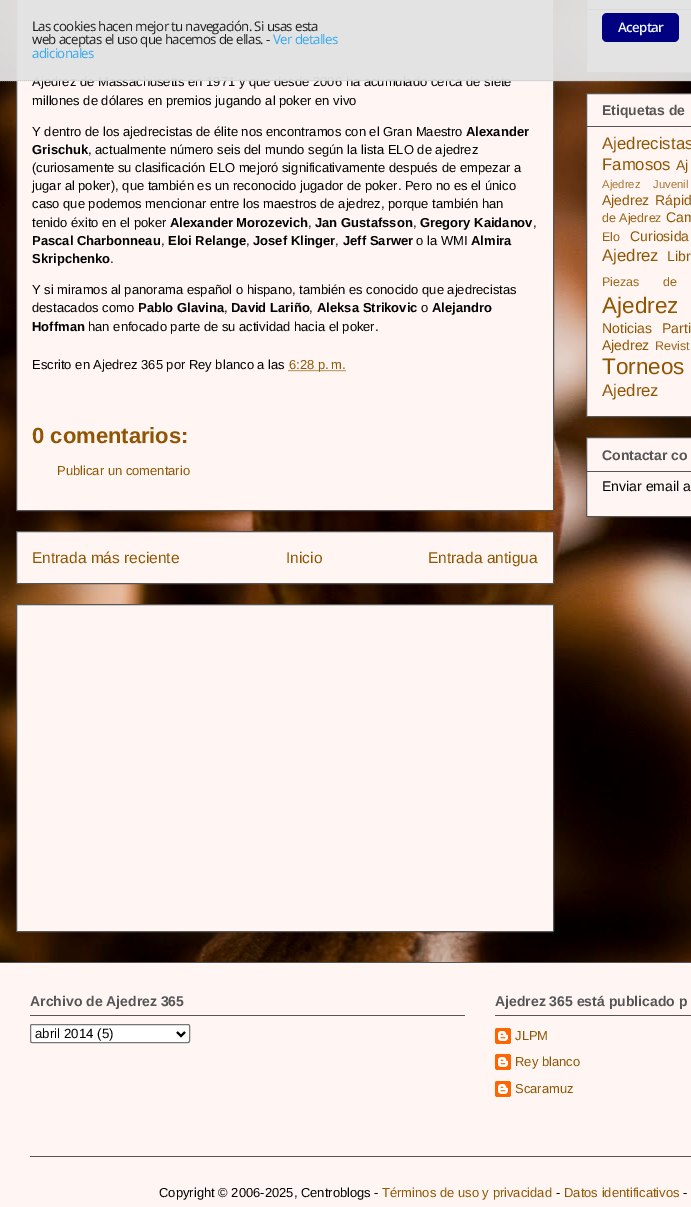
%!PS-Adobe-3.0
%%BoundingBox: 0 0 691 1207
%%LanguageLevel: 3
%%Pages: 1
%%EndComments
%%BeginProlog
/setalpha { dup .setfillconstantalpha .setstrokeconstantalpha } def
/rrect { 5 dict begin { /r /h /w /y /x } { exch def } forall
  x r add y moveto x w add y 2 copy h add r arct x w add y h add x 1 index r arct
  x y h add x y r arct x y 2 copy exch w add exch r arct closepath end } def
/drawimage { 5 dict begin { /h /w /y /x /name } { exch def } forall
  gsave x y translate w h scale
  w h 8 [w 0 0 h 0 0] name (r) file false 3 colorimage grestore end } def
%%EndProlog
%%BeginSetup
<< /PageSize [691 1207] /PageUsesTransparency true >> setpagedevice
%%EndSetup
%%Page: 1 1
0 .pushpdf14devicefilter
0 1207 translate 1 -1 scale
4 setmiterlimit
1 setgray
0 0 691 1207 rectfill
(images/1.raw) 0 0 691 962 drawimage
1 0.965 0.957 setrgbcolor
16.5 -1.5 537 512 0.5 rrect gsave fill grestore
0.333 setgray
stroke
0.565 0.333 0.008 setrgbcolor
[1 1] 0 setdash
newpath 288.5 370.5 moveto 345.5 370.5 lineto stroke
1 0.965 0.957 setrgbcolor
16.5 531.5 537 52 0.5 rrect gsave fill grestore
0.333 setgray
[] 0 setdash
stroke
1 0.965 0.957 setrgbcolor
16.5 604.5 537 327 0.5 rrect gsave fill grestore
0.333 setgray
stroke
1 0.965 0.957 setrgbcolor
586.5 -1.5 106 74 0.5 rrect gsave fill grestore
0.333 setgray
stroke
587 9 104 1 rectfill
1 0.965 0.957 setrgbcolor
586.5 93.5 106 323 0.5 rrect gsave fill grestore
0.333 setgray
stroke
587 126 104 1 rectfill
1 0.965 0.957 setrgbcolor
586.5 437.5 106 79 0.5 rrect gsave fill grestore
0.333 setgray
stroke
587 471 104 1 rectfill
1 0.965 0.957 setrgbcolor
0 963 691 244 rectfill
0.333 setgray
0 962 691 1 rectfill
30 1015 435 1 rectfill
1 setgray
30.5 1024.5 159 18 1.5 rrect gsave fill grestore
0.463 setgray
stroke
0 setgray
2 setlinewidth
newpath 177 1032 moveto 181 1036 lineto 185 1032 lineto stroke
0.333 setgray
495 1015 196 1 rectfill
(images/2.raw) 495 1028 16 16 drawimage
(images/2.raw) 495 1054 16 16 drawimage
(images/2.raw) 495 1081 16 16 drawimage
30 1156 661 1 rectfill
/LiberationSans-Regular [13 0 0 -13 0 0] selectfont
0 setgray
32 86 moveto (Ajedrez de Massachusetts en 1971 y que desde 2006 ha acumulado cerca de siete) show
0.95 setalpha
0.886 setgray
0 0 691 81 rectfill
1 setalpha
0 0 0.502 setrgbcolor
602 13 77 29 5 rrect fill
/OpenSans-SemiBold [13.3 0 0 -13.3 0 0] selectfont
0.941 0.973 1 setrgbcolor
618 32 moveto -0.67 0 (Aceptar) ashow
/OpenSans-Regular [13.3 0 0 -13.3 0 0] selectfont
0.192 0.659 0.941 setrgbcolor
32 58 moveto -0.67 0 (adicionales) ashow
273 44 moveto -0.67 0 (Ver detalles) ashow
0.114 setgray
32 44 moveto -0.67 0 (web aceptas el uso que hacemos de ellas. -) ashow
32 31 moveto -0.67 0 (Las cookies hacen mejor tu navegación. Si usas esta) ashow
0.8 setgray
1 setlinewidth
[1 1] 0 setdash
newpath 0 80.5 moveto 691 80.5 lineto stroke
/LiberationSans-Regular [13 0 0 -13 0 0] selectfont
0 setgray
32 105 moveto (millones de dólares en premios jugando al poker en vivo) show
32 136 moveto (Y dentro de los ajedrecistas de élite nos encontramos con el Gran Maestro) show
/LiberationSans-Bold [13 0 0 -13 0 0] selectfont
466 136 moveto (Alexander) show
32 154 moveto (Grischuk) show
/LiberationSans-Regular [13 0 0 -13 0 0] selectfont
88 154 moveto (, actualmente número seis del mundo según la lista ELO de ajedrez) show
32 172 moveto (\(curiosamente su clasificación ELO mejoró significativamente después de empezar a) show
32 190 moveto (jugar al poker\), que también es un reconocido jugador de poker. Pero no es el único) show
32 208 moveto (caso que podemos mencionar entre los maestros de ajedrez, porque también han) show
32 227 moveto (tenido éxito en el poker) show
/LiberationSans-Bold [13 0 0 -13 0 0] selectfont
170 227 moveto (Alexander Morozevich) show
/LiberationSans-Regular [13 0 0 -13 0 0] selectfont
308 227 moveto (,) show
/LiberationSans-Bold [13 0 0 -13 0 0] selectfont
315 227 moveto (Jan Gustafsson) show
/LiberationSans-Regular [13 0 0 -13 0 0] selectfont
413 227 moveto (,) show
/LiberationSans-Bold [13 0 0 -13 0 0] selectfont
420 227 moveto (Gregory Kaidanov) show
/LiberationSans-Regular [13 0 0 -13 0 0] selectfont
533 227 moveto (,) show
/LiberationSans-Bold [13 0 0 -13 0 0] selectfont
32 245 moveto (Pascal Charbonneau) show
/LiberationSans-Regular [13 0 0 -13 0 0] selectfont
161 245 moveto (,) show
/LiberationSans-Bold [13 0 0 -13 0 0] selectfont
168 245 moveto (Eloi Relange) show
/LiberationSans-Regular [13 0 0 -13 0 0] selectfont
246 245 moveto (,) show
/LiberationSans-Bold [13 0 0 -13 0 0] selectfont
253 245 moveto (Josef Klinger) show
/LiberationSans-Regular [13 0 0 -13 0 0] selectfont
335 245 moveto (,) show
/LiberationSans-Bold [13 0 0 -13 0 0] selectfont
343 245 moveto (Jeff Sarwer) show
/LiberationSans-Regular [13 0 0 -13 0 0] selectfont
416 245 moveto (o la WMI) show
/LiberationSans-Bold [13 0 0 -13 0 0] selectfont
471 245 moveto (Almira) show
32 263 moveto (Skripchenko) show
/LiberationSans-Regular [13 0 0 -13 0 0] selectfont
110 263 moveto (.) show
32 294 moveto (Y si miramos al panorama español o hispano, también es conocido que ajedrecistas) show
32 312 moveto (destacados como) show
/LiberationSans-Bold [13 0 0 -13 0 0] selectfont
138 312 moveto (Pablo Glavina) show
/LiberationSans-Regular [13 0 0 -13 0 0] selectfont
224 312 moveto (,) show
/LiberationSans-Bold [13 0 0 -13 0 0] selectfont
231 312 moveto (David Lariño) show
/LiberationSans-Regular [13 0 0 -13 0 0] selectfont
309 312 moveto (,) show
/LiberationSans-Bold [13 0 0 -13 0 0] selectfont
317 312 moveto (Aleksa Strikovic) show
/LiberationSans-Regular [13 0 0 -13 0 0] selectfont
421 312 moveto (o) show
/LiberationSans-Bold [13 0 0 -13 0 0] selectfont
432 312 moveto (Alejandro) show
32 331 moveto (Hoffman) show
/LiberationSans-Regular [13 0 0 -13 0 0] selectfont
88 331 moveto (han enfocado parte de su actividad hacia el poker.) show
32 369 moveto (Escrito en Ajedrez 365 por Rey blanco a las) show
0.565 0.333 0.008 setrgbcolor
289 369 moveto (6:28 p. m.) show
/LiberationSans-Bold [22 0 0 -22 0 0] selectfont
32 443 moveto (0 comentarios:) show
/LiberationSans-Regular [13 0 0 -13 0 0] selectfont
57 475 moveto (Publicar un comentario) show
/LiberationSans-Regular [15.5 0 0 -15.5 0 0] selectfont
32 563 moveto (Entrada más reciente) show
286 563 moveto (Inicio) show
428 563 moveto (Entrada antigua) show
/LiberationSans-Bold [14 0 0 -14 0 0] selectfont
0.333 setgray
602 115 moveto (Etiquetas de) show
/LiberationSans-Regular [16.75 0 0 -16.75 0 0] selectfont
0.565 0.333 0.008 setrgbcolor
602 149 moveto 14 0 32 (Ajedrecistas) widthshow
602 170 moveto (Famosos) show
/LiberationSans-Regular [14 0 0 -14 0 0] selectfont
676 170 moveto (Aj) show
/LiberationSans-Regular [11.25 0 0 -11.25 0 0] selectfont
0.651 0.459 0.196 setrgbcolor
602 188 moveto 10 0 32 (Ajedrez Juvenil) widthshow
/LiberationSans-Regular [14 0 0 -14 0 0] selectfont
0.565 0.333 0.008 setrgbcolor
602 205 moveto 2 0 32 (Ajedrez Rápid) widthshow
/LiberationSans-Regular [12.5 0 0 -12.5 0 0] selectfont
0.608 0.396 0.102 setrgbcolor
602 222 moveto (de Ajedrez) show
/LiberationSans-Regular [14 0 0 -14 0 0] selectfont
0.565 0.333 0.008 setrgbcolor
666 222 moveto (Cam) show
/LiberationSans-Regular [12.5 0 0 -12.5 0 0] selectfont
0.608 0.396 0.102 setrgbcolor
602 241 moveto (Elo) show
/LiberationSans-Regular [14 0 0 -14 0 0] selectfont
0.565 0.333 0.008 setrgbcolor
630 241 moveto 6 0 32 (Curiosida) widthshow
/LiberationSans-Regular [16.75 0 0 -16.75 0 0] selectfont
602 261 moveto (Ajedrez) show
/LiberationSans-Regular [14 0 0 -14 0 0] selectfont
667 261 moveto 3 0 32 (Libr) widthshow
/LiberationSans-Regular [12.5 0 0 -12.5 0 0] selectfont
0.608 0.396 0.102 setrgbcolor
602 286 moveto 20 0 32 (Piezas de) widthshow
/LiberationSans-Regular [22.5 0 0 -22.5 0 0] selectfont
0.565 0.333 0.008 setrgbcolor
602 313 moveto (Ajedrez) show
/LiberationSans-Regular [14 0 0 -14 0 0] selectfont
602 333 moveto (Noticias) show
662 333 moveto 6 0 32 (Parti) widthshow
602 350 moveto (Ajedrez) show
/LiberationSans-Regular [12.5 0 0 -12.5 0 0] selectfont
0.608 0.396 0.102 setrgbcolor
655 350 moveto 2 0 32 (Revist) widthshow
/LiberationSans-Regular [22.5 0 0 -22.5 0 0] selectfont
0.565 0.333 0.008 setrgbcolor
602 374 moveto 4 0 32 (Torneos) widthshow
/LiberationSans-Regular [16.75 0 0 -16.75 0 0] selectfont
602 396 moveto (Ajedrez) show
/LiberationSans-Bold [14 0 0 -14 0 0] selectfont
0.333 setgray
602 460 moveto (Contactar co) show
/LiberationSans-Regular [14 0 0 -14 0 0] selectfont
0 setgray
602 491 moveto (Enviar email a) show
/LiberationSans-Bold [14 0 0 -14 0 0] selectfont
0.333 setgray
30 1006 moveto (Archivo de Ajedrez 365) show
/LiberationSans-Regular [13.3 0 0 -13.3 0 0] selectfont
0 setgray
35 1038 moveto (abril 2014 \(5\)) show
/LiberationSans-Bold [14 0 0 -14 0 0] selectfont
0.333 setgray
495 1006 moveto (Ajedrez 365 está publicado p) show
/LiberationSans-Regular [13 0 0 -13 0 0] selectfont
0.565 0.333 0.008 setrgbcolor
515 1040 moveto (JLPM) show
515 1066 moveto (Rey blanco) show
515 1093 moveto (Scaramuz) show
0 setgray
159 1197 moveto (Copyright © 2006-2025, Centroblogs -) show
0.565 0.333 0.008 setrgbcolor
382 1197 moveto (Términos de uso y privacidad) show
0 setgray
556 1197 moveto (-) show
0.565 0.333 0.008 setrgbcolor
564 1197 moveto (Datos identificativos) show
0 setgray
683 1197 moveto (-) show
.poppdf14devicefilter showpage
%%EOF
